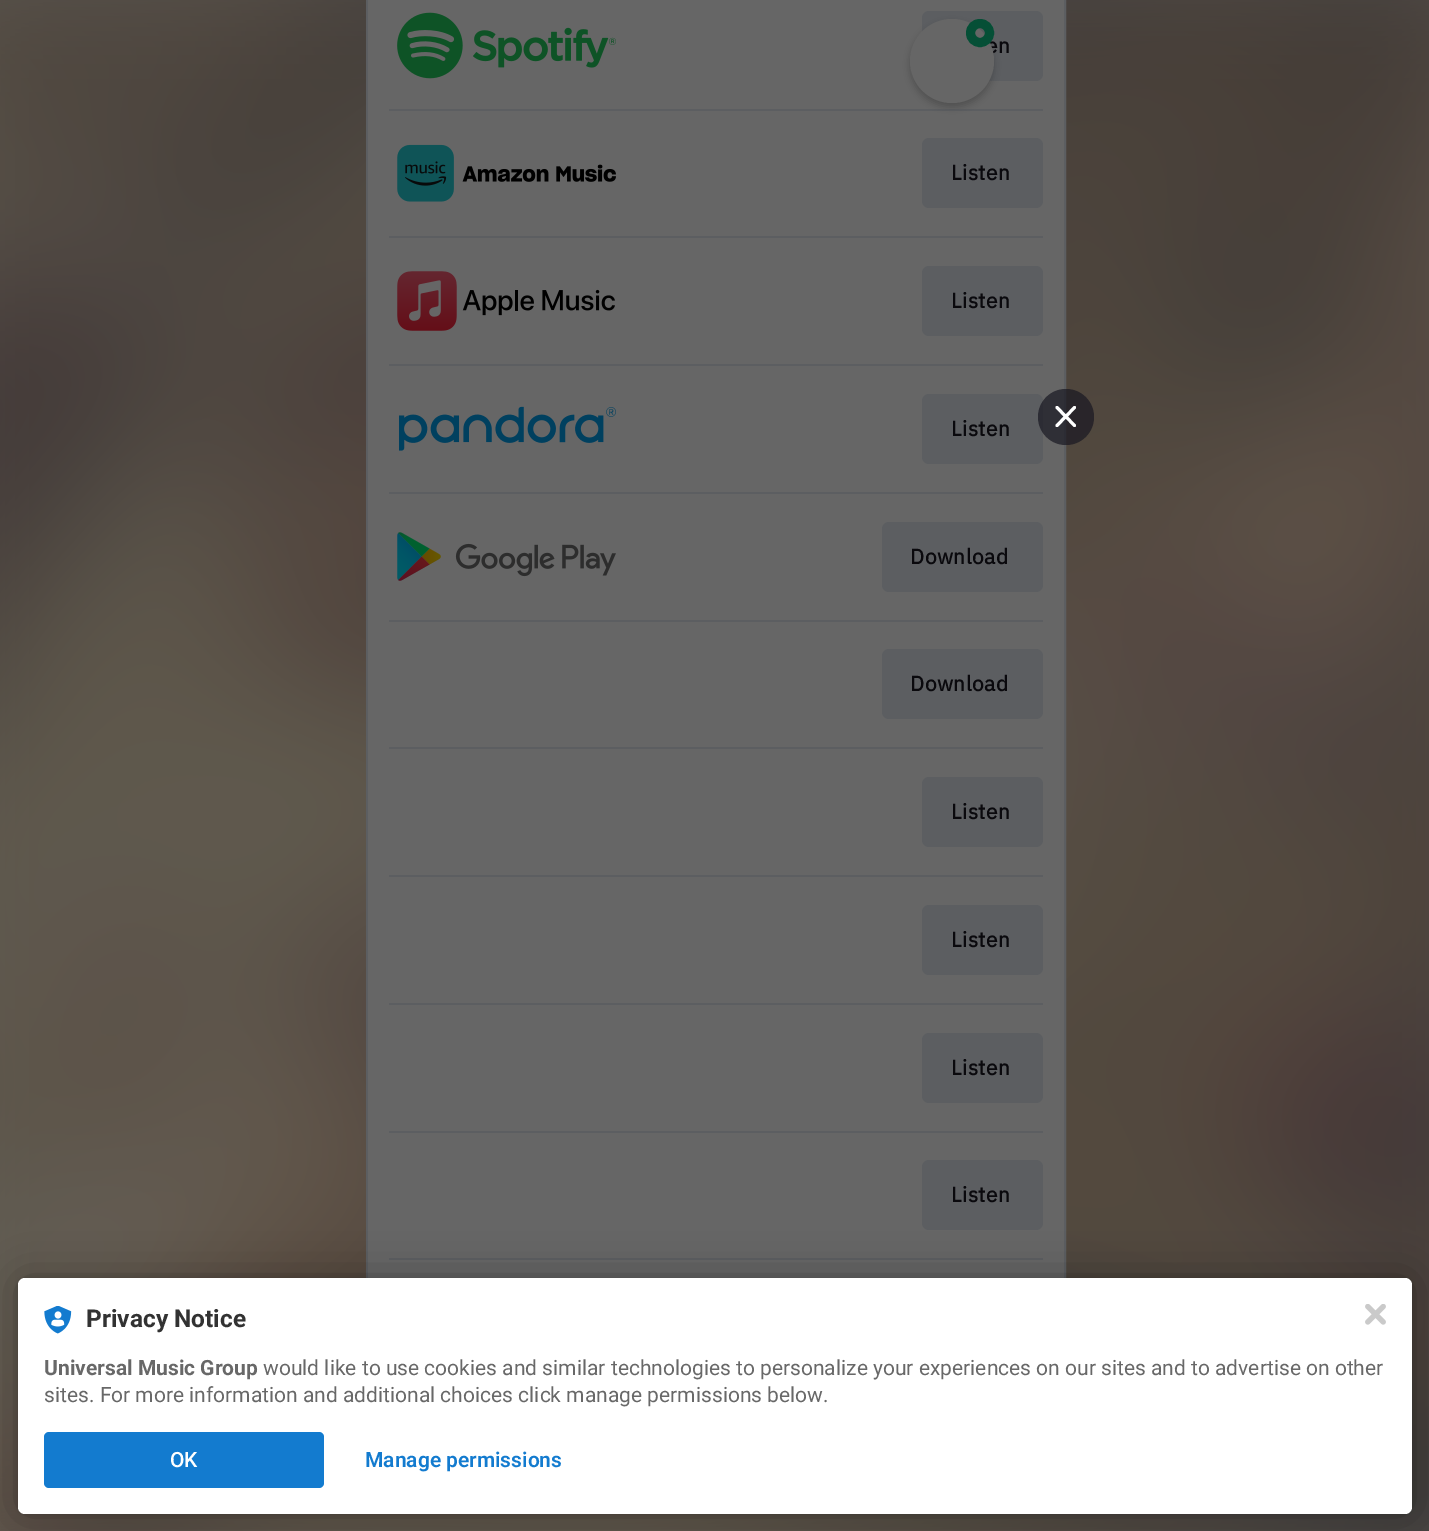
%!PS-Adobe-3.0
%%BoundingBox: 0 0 1429 1531
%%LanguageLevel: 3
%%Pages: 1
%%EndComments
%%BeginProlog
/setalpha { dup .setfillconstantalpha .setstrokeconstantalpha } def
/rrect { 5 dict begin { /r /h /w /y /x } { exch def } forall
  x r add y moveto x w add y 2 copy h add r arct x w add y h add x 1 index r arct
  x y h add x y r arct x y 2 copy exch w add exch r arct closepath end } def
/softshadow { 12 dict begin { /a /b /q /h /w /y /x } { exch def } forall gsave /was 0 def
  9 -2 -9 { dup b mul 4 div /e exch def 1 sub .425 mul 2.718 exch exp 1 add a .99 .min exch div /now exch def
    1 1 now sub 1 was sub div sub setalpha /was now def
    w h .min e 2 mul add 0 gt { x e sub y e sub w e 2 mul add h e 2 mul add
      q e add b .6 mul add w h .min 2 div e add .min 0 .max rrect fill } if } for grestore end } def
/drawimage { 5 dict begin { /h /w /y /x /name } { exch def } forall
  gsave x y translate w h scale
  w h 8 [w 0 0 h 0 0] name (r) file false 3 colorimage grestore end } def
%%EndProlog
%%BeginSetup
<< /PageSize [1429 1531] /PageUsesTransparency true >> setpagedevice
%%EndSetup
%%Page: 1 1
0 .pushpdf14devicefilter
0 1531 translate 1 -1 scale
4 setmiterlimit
0.4 setgray
0 0 1429 1531 rectfill
(images/1.raw) 0 0 1429 1531 drawimage
0.361 0.369 0.38 setrgbcolor
2 setlinewidth
367 -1 698 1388 rectstroke
0.4 setgray
368 0 696 1278 rectfill
0.361 0.369 0.38 setrgbcolor
922 11 121 70 7 rrect fill
389 109 654 2 rectfill
0 setgray
910 23 84 84 42 3.5 0.2 softshadow
0.361 0.369 0.38 setrgbcolor
922 394 121 70 7 rrect fill
0.7 setalpha
0.094 0.09 0.129 setrgbcolor
newpath 1066 417 28 0 360 arc closepath fill
1 setalpha
1 setgray
3 setlinewidth
1 setlinecap
1 setlinejoin
newpath 1057 407.5 moveto 1074.5 425.5 lineto 1057 425.5 moveto 1074.5 407.5 lineto stroke
(images/2.raw) 397 12 219 67 drawimage
(images/3.raw) 397 144 219 58 drawimage
0.361 0.369 0.38 setrgbcolor
922 138 121 70 7 rrect fill
389 236 654 2 rectfill
(images/4.raw) 397 271 218 60 drawimage
922 266 121 70 7 rrect fill
389 364 654 2 rectfill
(images/5.raw) 399 406 217 45 drawimage
389 492 654 2 rectfill
(images/6.raw) 397 532 219 49 drawimage
882 522 161 70 7 rrect fill
389 620 654 2 rectfill
882 649 161 70 7 rrect fill
389 747 654 2 rectfill
922 777 121 70 7 rrect fill
389 875 654 2 rectfill
922 905 121 70 7 rrect fill
389 1003 654 2 rectfill
922 1033 121 70 7 rrect fill
389 1131 654 2 rectfill
922 1160 121 70 7 rrect fill
389 1258 654 2 rectfill
0 setgray
18 1278 1394 236 7 3.5 0.12 softshadow
18 1278 1394 236 7 21 0.3 softshadow
1 setgray
18 1278 1394 236 7 rrect fill
(images/7.raw) 1365 1304 21 21 drawimage
(images/8.raw) 44 1306 28 28 drawimage
0.075 0.482 0.812 setrgbcolor
44 1432 280 56 5 rrect fill
/IBMPlexSans-Bold [21 0 0 -21 0 0] selectfont
0.039 0.035 0.051 setrgbcolor
986 53 moveto 0.5 0 (en) ashow
0.4 setgray
newpath 952 61 42 0 360 arc closepath fill
0.02 0.31 0.212 setrgbcolor
9 setlinewidth
0 setlinecap
0 setlinejoin
newpath 980 33 9.5 0 360 arc closepath stroke
0.039 0.035 0.051 setrgbcolor
951 180 moveto 0.5 0 (Listen) ashow
951 308 moveto 0.5 0 (Listen) ashow
951 436 moveto 0.5 0 (Listen) ashow
910 564 moveto 0.5 0 (Download) ashow
910 691 moveto 0.5 0 (Download) ashow
951 819 moveto 0.5 0 (Listen) ashow
951 947 moveto 0.5 0 (Listen) ashow
951 1075 moveto 0.5 0 (Listen) ashow
951 1202 moveto 0.5 0 (Listen) ashow
/Roboto-Bold [24.5 0 0 -24.5 0 0] selectfont
0.196 setgray
86 1327 moveto (Privacy Notice) show
/Roboto-Bold [21 0 0 -21 0 0] selectfont
0.408 setgray
44 1375 moveto (Universal Music Group) show
/Roboto-Regular [21 0 0 -21 0 0] selectfont
263 1375 moveto (would like to use cookies and similar technologies to personalize your experiences on our sites and to advertise on other) show
44 1402 moveto (sites. For more information and additional choices click manage permissions below.) show
/Roboto-Medium [21 0 0 -21 0 0] selectfont
1 setgray
170 1467 moveto (OK) show
/Roboto-SemiBold [21 0 0 -21 0 0] selectfont
0.075 0.482 0.812 setrgbcolor
365 1467 moveto (Manage permissions) show
.poppdf14devicefilter showpage
%%EOF
